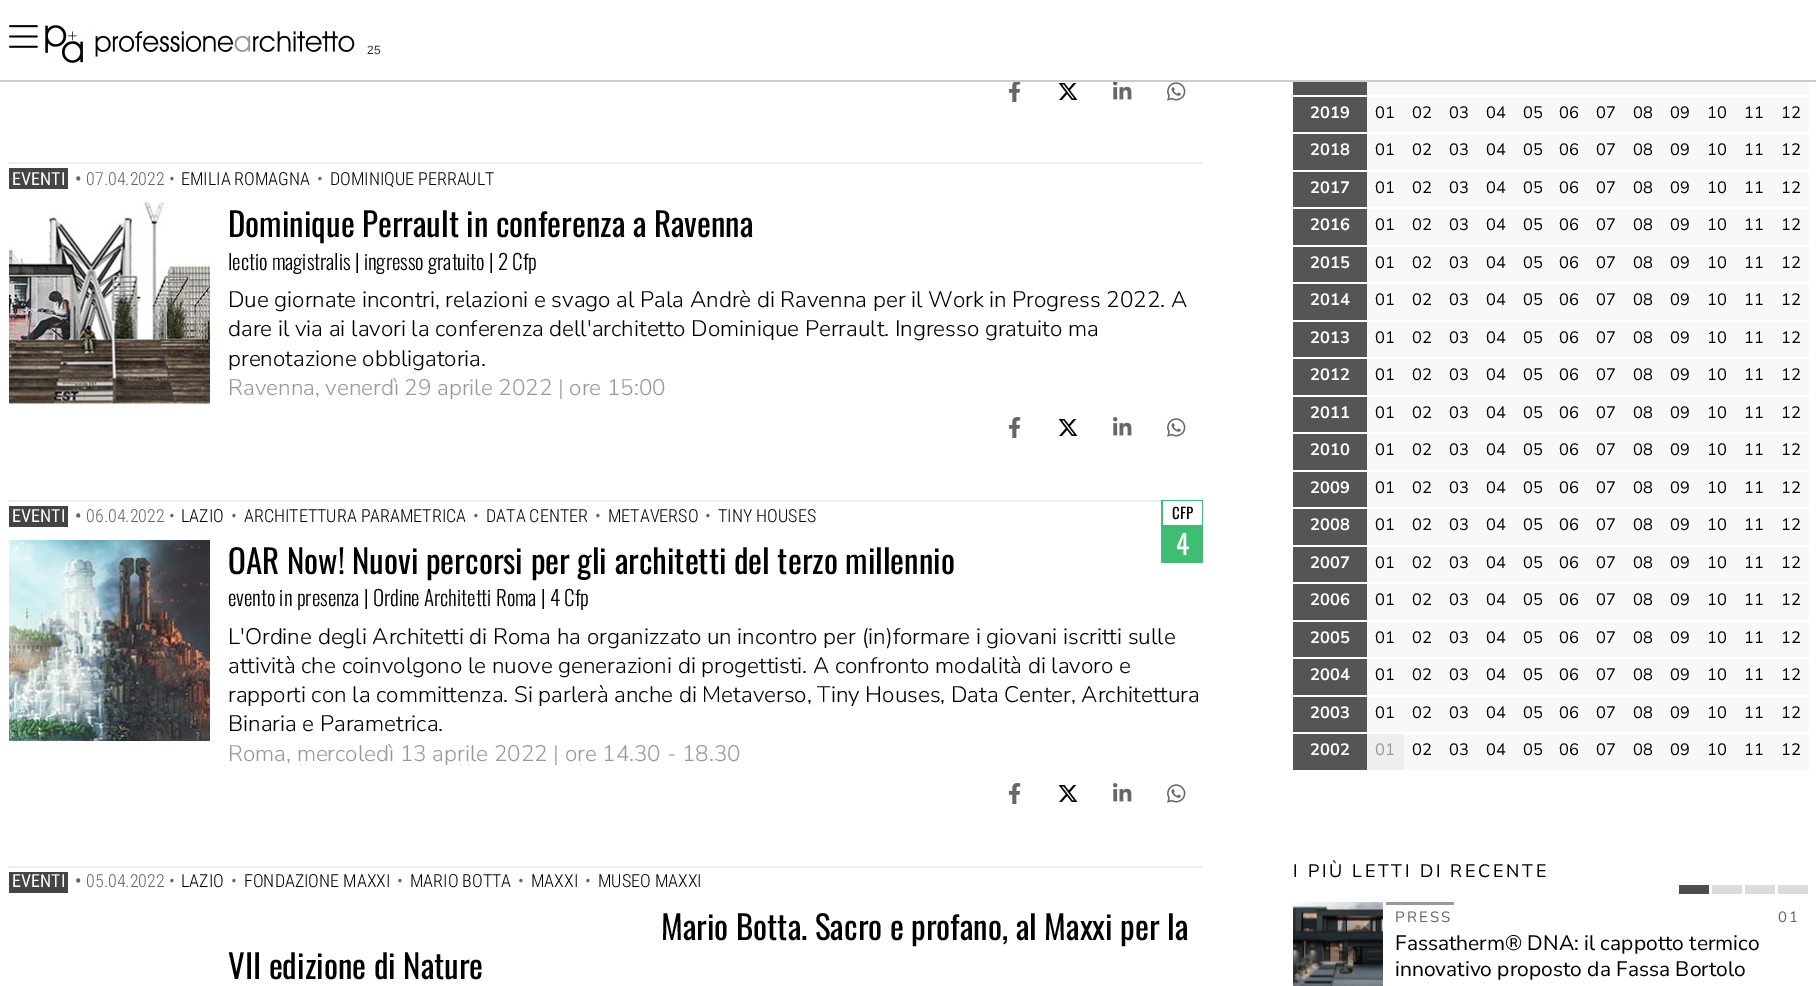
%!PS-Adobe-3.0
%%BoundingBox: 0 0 1816 986
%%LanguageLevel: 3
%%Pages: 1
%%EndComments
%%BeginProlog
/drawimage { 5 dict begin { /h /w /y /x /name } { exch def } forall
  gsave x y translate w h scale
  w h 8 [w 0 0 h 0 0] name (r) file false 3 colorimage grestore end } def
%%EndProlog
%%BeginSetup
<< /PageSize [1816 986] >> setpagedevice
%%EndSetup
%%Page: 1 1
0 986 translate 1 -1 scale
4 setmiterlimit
1 setgray
0 0 1816 986 rectfill
0.8 setgray
0 80 1816 2 rectfill
(images/1.raw) 9 25 29 23 drawimage
(images/2.raw) 45 25 310 38 drawimage
(images/3.raw) 1008 82 13 20 drawimage
(images/4.raw) 1058 83 20 17 drawimage
(images/5.raw) 1113 82 19 18 drawimage
(images/6.raw) 1167 82 19 19 drawimage
0.933 setgray
9 162 1194 2 rectfill
0.267 setgray
9 168 59 21 rectfill
(images/7.raw) 9 202 201 202 drawimage
(images/8.raw) 1008 417 13 21 drawimage
(images/4.raw) 1058 419 20 17 drawimage
(images/9.raw) 1113 417 19 19 drawimage
(images/6.raw) 1167 418 19 19 drawimage
0.933 setgray
9 500 1152 2 rectfill
0.267 setgray
9 506 59 21 rectfill
0.247 0.745 0.451 setrgbcolor
1161 500 42 63 rectfill
1 setgray
1163 501 39 24 rectfill
(images/10.raw) 9 540 201 201 drawimage
(images/8.raw) 1008 783 13 21 drawimage
(images/4.raw) 1058 785 20 17 drawimage
(images/9.raw) 1113 783 19 19 drawimage
(images/6.raw) 1167 784 19 19 drawimage
0.933 setgray
9 866 1194 2 rectfill
0.267 setgray
9 872 59 21 rectfill
0.333 setgray
1293 82 74 13 rectfill
0.973 setgray
1367 82 442 13 rectfill
0.333 setgray
1293 97 74 35 rectfill
0.973 setgray
1367 97 442 35 rectfill
0.333 setgray
1293 134 74 36 rectfill
0.973 setgray
1367 134 442 36 rectfill
0.333 setgray
1293 172 74 35 rectfill
0.973 setgray
1367 172 442 35 rectfill
0.333 setgray
1293 209 74 36 rectfill
0.973 setgray
1367 209 442 36 rectfill
0.333 setgray
1293 247 74 35 rectfill
0.973 setgray
1367 247 442 35 rectfill
0.333 setgray
1293 284 74 36 rectfill
0.973 setgray
1367 284 442 36 rectfill
0.333 setgray
1293 322 74 35 rectfill
0.973 setgray
1367 322 442 35 rectfill
0.333 setgray
1293 359 74 36 rectfill
0.973 setgray
1367 359 442 36 rectfill
0.333 setgray
1293 397 74 35 rectfill
0.973 setgray
1367 397 442 35 rectfill
0.333 setgray
1293 434 74 36 rectfill
0.973 setgray
1367 434 442 36 rectfill
0.333 setgray
1293 472 74 35 rectfill
0.973 setgray
1367 472 442 35 rectfill
0.333 setgray
1293 509 74 36 rectfill
0.973 setgray
1367 509 442 36 rectfill
0.333 setgray
1293 547 74 35 rectfill
0.973 setgray
1367 547 442 35 rectfill
0.333 setgray
1293 584 74 36 rectfill
0.973 setgray
1367 584 442 36 rectfill
0.333 setgray
1293 622 74 35 rectfill
0.973 setgray
1367 622 442 35 rectfill
0.333 setgray
1293 659 74 36 rectfill
0.973 setgray
1367 659 442 36 rectfill
0.333 setgray
1293 697 74 35 rectfill
0.973 setgray
1367 697 442 35 rectfill
0.333 setgray
1293 734 74 36 rectfill
0.933 setgray
1367 734 37 36 rectfill
0.973 setgray
1404 734 405 36 rectfill
0.302 setgray
1679 885 30 9 rectfill
0.859 setgray
1712 885 30 9 rectfill
1745 885 30 9 rectfill
1778 885 30 9 rectfill
(images/11.raw) 1293 902 90 84 drawimage
0.6 setgray
1386 902 68 3 rectfill
/LiberationSans-Regular [12 0 0 -12 0 0] selectfont
0.2 setgray
367 54 moveto (25) show
/RobotoCondensed-Regular [18 0 0 -18 0 0] selectfont
1 setgray
12 185 moveto (EVENTI) show
/RobotoCondensed-Bold [18 0 0 -18 0 0] selectfont
0.4 setgray
75 185 moveto (•) show
/RobotoCondensed-Light [18 0 0 -18 0 0] selectfont
86 185 moveto (07.04.2022 •) show
0 setgray
181 185 moveto (EMILIA ROMAGNA) show
0.4 setgray
317 185 moveto (•) show
0 setgray
330 185 moveto (DOMINIQUE PERRAULT) show
/Oswald-Regular [33 0 0 -33 0 0] selectfont
228 237 moveto (Dominique Perrault in conferenza a Ravenna) show
/Oswald-Light [21 0 0 -21 0 0] selectfont
228 270 moveto (lectio magistralis | ingresso gratuito | 2 Cfp) show
/NunitoSans-Light [22.5 0 0 -22.5 0 0] selectfont
228 307 moveto (Due giornate incontri, relazioni e svago al Pala Andrè di Ravenna per il Work in Progress 2022. A) show
228 336 moveto (dare il via ai lavori la conferenza dell'architetto Dominique Perrault. Ingresso gratuito ma) show
228 366 moveto (prenotazione obbligatoria.) show
0.6 setgray
228 395 moveto (Ravenna, venerdì 29 aprile 2022 | ore 15:00) show
/RobotoCondensed-Regular [18 0 0 -18 0 0] selectfont
1 setgray
12 522 moveto (EVENTI) show
/RobotoCondensed-Bold [18 0 0 -18 0 0] selectfont
0.4 setgray
75 522 moveto (•) show
/RobotoCondensed-Light [18 0 0 -18 0 0] selectfont
86 522 moveto (06.04.2022 •) show
0 setgray
181 522 moveto (LAZIO) show
0.4 setgray
231 522 moveto (•) show
0 setgray
244 522 moveto (ARCHITETTURA PARAMETRICA) show
0.4 setgray
473 522 moveto (•) show
0 setgray
486 522 moveto (DATA CENTER) show
0.4 setgray
595 522 moveto (•) show
0 setgray
608 522 moveto (METAVERSO) show
0.4 setgray
705 522 moveto (•) show
0 setgray
718 522 moveto (TINY HOUSES) show
/Oswald-Regular [15 0 0 -15 0 0] selectfont
1172 519 moveto (CFP) show
/Oswald-Regular [27 0 0 -27 0 0] selectfont
1 setgray
1176 555 moveto (4) show
/Oswald-Regular [33 0 0 -33 0 0] selectfont
0 setgray
228 574 moveto (OAR Now! Nuovi percorsi per gli architetti del terzo millennio) show
/Oswald-Light [21 0 0 -21 0 0] selectfont
228 606 moveto (evento in presenza | Ordine Architetti Roma | 4 Cfp) show
/NunitoSans-Light [22.5 0 0 -22.5 0 0] selectfont
228 644 moveto (L'Ordine degli Architetti di Roma ha organizzato un incontro per \(in\)formare i giovani iscritti sulle) show
228 673 moveto (attività che coinvolgono le nuove generazioni di progettisti. A confronto modalità di lavoro e) show
228 702 moveto (rapporti con la committenza. Si parlerà anche di Metaverso, Tiny Houses, Data Center, Architettura) show
228 731 moveto (Binaria e Parametrica.) show
0.6 setgray
228 761 moveto (Roma, mercoledì 13 aprile 2022 | ore 14.30 - 18.30) show
/RobotoCondensed-Regular [18 0 0 -18 0 0] selectfont
1 setgray
12 887 moveto (EVENTI) show
/RobotoCondensed-Bold [18 0 0 -18 0 0] selectfont
0.4 setgray
75 887 moveto (•) show
/RobotoCondensed-Light [18 0 0 -18 0 0] selectfont
86 887 moveto (05.04.2022 •) show
0 setgray
181 887 moveto (LAZIO) show
0.4 setgray
231 887 moveto (•) show
0 setgray
244 887 moveto (FONDAZIONE MAXXI) show
0.4 setgray
397 887 moveto (•) show
0 setgray
410 887 moveto (MARIO BOTTA) show
0.4 setgray
518 887 moveto (•) show
0 setgray
531 887 moveto (MAXXI) show
0.4 setgray
585 887 moveto (•) show
0 setgray
598 887 moveto (MUSEO MAXXI) show
/Oswald-Regular [33 0 0 -33 0 0] selectfont
661 940 moveto (Mario Botta. Sacro e profano, al Maxxi per la) show
228 979 moveto (VII edizione di Nature) show
/NunitoSans-Bold [16.5 0 0 -16.5 0 0] selectfont
1 setgray
1310 118 moveto (2019) show
/NunitoSans-Regular [16.5 0 0 -16.5 0 0] selectfont
0 setgray
1375 118 moveto (01) show
1412 118 moveto (02) show
1449 118 moveto (03) show
1486 118 moveto (04) show
1523 118 moveto (05) show
1559 118 moveto (06) show
1596 118 moveto (07) show
1633 118 moveto (08) show
1670 118 moveto (09) show
1707 118 moveto (10) show
1744 118 moveto (11) show
1781 118 moveto (12) show
/NunitoSans-Bold [16.5 0 0 -16.5 0 0] selectfont
1 setgray
1310 155 moveto (2018) show
/NunitoSans-Regular [16.5 0 0 -16.5 0 0] selectfont
0 setgray
1375 155 moveto (01) show
1412 155 moveto (02) show
1449 155 moveto (03) show
1486 155 moveto (04) show
1523 155 moveto (05) show
1559 155 moveto (06) show
1596 155 moveto (07) show
1633 155 moveto (08) show
1670 155 moveto (09) show
1707 155 moveto (10) show
1744 155 moveto (11) show
1781 155 moveto (12) show
/NunitoSans-Bold [16.5 0 0 -16.5 0 0] selectfont
1 setgray
1310 193 moveto (2017) show
/NunitoSans-Regular [16.5 0 0 -16.5 0 0] selectfont
0 setgray
1375 193 moveto (01) show
1412 193 moveto (02) show
1449 193 moveto (03) show
1486 193 moveto (04) show
1523 193 moveto (05) show
1559 193 moveto (06) show
1596 193 moveto (07) show
1633 193 moveto (08) show
1670 193 moveto (09) show
1707 193 moveto (10) show
1744 193 moveto (11) show
1781 193 moveto (12) show
/NunitoSans-Bold [16.5 0 0 -16.5 0 0] selectfont
1 setgray
1310 230 moveto (2016) show
/NunitoSans-Regular [16.5 0 0 -16.5 0 0] selectfont
0 setgray
1375 230 moveto (01) show
1412 230 moveto (02) show
1449 230 moveto (03) show
1486 230 moveto (04) show
1523 230 moveto (05) show
1559 230 moveto (06) show
1596 230 moveto (07) show
1633 230 moveto (08) show
1670 230 moveto (09) show
1707 230 moveto (10) show
1744 230 moveto (11) show
1781 230 moveto (12) show
/NunitoSans-Bold [16.5 0 0 -16.5 0 0] selectfont
1 setgray
1310 268 moveto (2015) show
/NunitoSans-Regular [16.5 0 0 -16.5 0 0] selectfont
0 setgray
1375 268 moveto (01) show
1412 268 moveto (02) show
1449 268 moveto (03) show
1486 268 moveto (04) show
1523 268 moveto (05) show
1559 268 moveto (06) show
1596 268 moveto (07) show
1633 268 moveto (08) show
1670 268 moveto (09) show
1707 268 moveto (10) show
1744 268 moveto (11) show
1781 268 moveto (12) show
/NunitoSans-Bold [16.5 0 0 -16.5 0 0] selectfont
1 setgray
1310 305 moveto (2014) show
/NunitoSans-Regular [16.5 0 0 -16.5 0 0] selectfont
0 setgray
1375 305 moveto (01) show
1412 305 moveto (02) show
1449 305 moveto (03) show
1486 305 moveto (04) show
1523 305 moveto (05) show
1559 305 moveto (06) show
1596 305 moveto (07) show
1633 305 moveto (08) show
1670 305 moveto (09) show
1707 305 moveto (10) show
1744 305 moveto (11) show
1781 305 moveto (12) show
/NunitoSans-Bold [16.5 0 0 -16.5 0 0] selectfont
1 setgray
1310 343 moveto (2013) show
/NunitoSans-Regular [16.5 0 0 -16.5 0 0] selectfont
0 setgray
1375 343 moveto (01) show
1412 343 moveto (02) show
1449 343 moveto (03) show
1486 343 moveto (04) show
1523 343 moveto (05) show
1559 343 moveto (06) show
1596 343 moveto (07) show
1633 343 moveto (08) show
1670 343 moveto (09) show
1707 343 moveto (10) show
1744 343 moveto (11) show
1781 343 moveto (12) show
/NunitoSans-Bold [16.5 0 0 -16.5 0 0] selectfont
1 setgray
1310 380 moveto (2012) show
/NunitoSans-Regular [16.5 0 0 -16.5 0 0] selectfont
0 setgray
1375 380 moveto (01) show
1412 380 moveto (02) show
1449 380 moveto (03) show
1486 380 moveto (04) show
1523 380 moveto (05) show
1559 380 moveto (06) show
1596 380 moveto (07) show
1633 380 moveto (08) show
1670 380 moveto (09) show
1707 380 moveto (10) show
1744 380 moveto (11) show
1781 380 moveto (12) show
/NunitoSans-Bold [16.5 0 0 -16.5 0 0] selectfont
1 setgray
1310 418 moveto (2011) show
/NunitoSans-Regular [16.5 0 0 -16.5 0 0] selectfont
0 setgray
1375 418 moveto (01) show
1412 418 moveto (02) show
1449 418 moveto (03) show
1486 418 moveto (04) show
1523 418 moveto (05) show
1559 418 moveto (06) show
1596 418 moveto (07) show
1633 418 moveto (08) show
1670 418 moveto (09) show
1707 418 moveto (10) show
1744 418 moveto (11) show
1781 418 moveto (12) show
/NunitoSans-Bold [16.5 0 0 -16.5 0 0] selectfont
1 setgray
1310 455 moveto (2010) show
/NunitoSans-Regular [16.5 0 0 -16.5 0 0] selectfont
0 setgray
1375 455 moveto (01) show
1412 455 moveto (02) show
1449 455 moveto (03) show
1486 455 moveto (04) show
1523 455 moveto (05) show
1559 455 moveto (06) show
1596 455 moveto (07) show
1633 455 moveto (08) show
1670 455 moveto (09) show
1707 455 moveto (10) show
1744 455 moveto (11) show
1781 455 moveto (12) show
/NunitoSans-Bold [16.5 0 0 -16.5 0 0] selectfont
1 setgray
1310 493 moveto (2009) show
/NunitoSans-Regular [16.5 0 0 -16.5 0 0] selectfont
0 setgray
1375 493 moveto (01) show
1412 493 moveto (02) show
1449 493 moveto (03) show
1486 493 moveto (04) show
1523 493 moveto (05) show
1559 493 moveto (06) show
1596 493 moveto (07) show
1633 493 moveto (08) show
1670 493 moveto (09) show
1707 493 moveto (10) show
1744 493 moveto (11) show
1781 493 moveto (12) show
/NunitoSans-Bold [16.5 0 0 -16.5 0 0] selectfont
1 setgray
1310 530 moveto (2008) show
/NunitoSans-Regular [16.5 0 0 -16.5 0 0] selectfont
0 setgray
1375 530 moveto (01) show
1412 530 moveto (02) show
1449 530 moveto (03) show
1486 530 moveto (04) show
1523 530 moveto (05) show
1559 530 moveto (06) show
1596 530 moveto (07) show
1633 530 moveto (08) show
1670 530 moveto (09) show
1707 530 moveto (10) show
1744 530 moveto (11) show
1781 530 moveto (12) show
/NunitoSans-Bold [16.5 0 0 -16.5 0 0] selectfont
1 setgray
1310 568 moveto (2007) show
/NunitoSans-Regular [16.5 0 0 -16.5 0 0] selectfont
0 setgray
1375 568 moveto (01) show
1412 568 moveto (02) show
1449 568 moveto (03) show
1486 568 moveto (04) show
1523 568 moveto (05) show
1559 568 moveto (06) show
1596 568 moveto (07) show
1633 568 moveto (08) show
1670 568 moveto (09) show
1707 568 moveto (10) show
1744 568 moveto (11) show
1781 568 moveto (12) show
/NunitoSans-Bold [16.5 0 0 -16.5 0 0] selectfont
1 setgray
1310 605 moveto (2006) show
/NunitoSans-Regular [16.5 0 0 -16.5 0 0] selectfont
0 setgray
1375 605 moveto (01) show
1412 605 moveto (02) show
1449 605 moveto (03) show
1486 605 moveto (04) show
1523 605 moveto (05) show
1559 605 moveto (06) show
1596 605 moveto (07) show
1633 605 moveto (08) show
1670 605 moveto (09) show
1707 605 moveto (10) show
1744 605 moveto (11) show
1781 605 moveto (12) show
/NunitoSans-Bold [16.5 0 0 -16.5 0 0] selectfont
1 setgray
1310 643 moveto (2005) show
/NunitoSans-Regular [16.5 0 0 -16.5 0 0] selectfont
0 setgray
1375 643 moveto (01) show
1412 643 moveto (02) show
1449 643 moveto (03) show
1486 643 moveto (04) show
1523 643 moveto (05) show
1559 643 moveto (06) show
1596 643 moveto (07) show
1633 643 moveto (08) show
1670 643 moveto (09) show
1707 643 moveto (10) show
1744 643 moveto (11) show
1781 643 moveto (12) show
/NunitoSans-Bold [16.5 0 0 -16.5 0 0] selectfont
1 setgray
1310 680 moveto (2004) show
/NunitoSans-Regular [16.5 0 0 -16.5 0 0] selectfont
0 setgray
1375 680 moveto (01) show
1412 680 moveto (02) show
1449 680 moveto (03) show
1486 680 moveto (04) show
1523 680 moveto (05) show
1559 680 moveto (06) show
1596 680 moveto (07) show
1633 680 moveto (08) show
1670 680 moveto (09) show
1707 680 moveto (10) show
1744 680 moveto (11) show
1781 680 moveto (12) show
/NunitoSans-Bold [16.5 0 0 -16.5 0 0] selectfont
1 setgray
1310 718 moveto (2003) show
/NunitoSans-Regular [16.5 0 0 -16.5 0 0] selectfont
0 setgray
1375 718 moveto (01) show
1412 718 moveto (02) show
1449 718 moveto (03) show
1486 718 moveto (04) show
1523 718 moveto (05) show
1559 718 moveto (06) show
1596 718 moveto (07) show
1633 718 moveto (08) show
1670 718 moveto (09) show
1707 718 moveto (10) show
1744 718 moveto (11) show
1781 718 moveto (12) show
/NunitoSans-Bold [16.5 0 0 -16.5 0 0] selectfont
1 setgray
1310 755 moveto (2002) show
/NunitoSans-Regular [16.5 0 0 -16.5 0 0] selectfont
0.6 setgray
1375 755 moveto (01) show
0 setgray
1412 755 moveto (02) show
1449 755 moveto (03) show
1486 755 moveto (04) show
1523 755 moveto (05) show
1559 755 moveto (06) show
1596 755 moveto (07) show
1633 755 moveto (08) show
1670 755 moveto (09) show
1707 755 moveto (10) show
1744 755 moveto (11) show
1781 755 moveto (12) show
/NunitoSans-Regular [18 0 0 -18 0 0] selectfont
1293 877 moveto 2.7 0 (I PIÙ LETTI DI RECENTE) ashow
/Nunito-Regular [15 0 0 -15 0 0] selectfont
0.4 setgray
1395 922 moveto 2.25 0 (PRESS) ashow
1778 922 moveto 2.25 0 (01) ashow
/NunitoSans-Regular [21 0 0 -21 0 0] selectfont
0 setgray
1395 950 moveto (Fassatherm® DNA: il cappotto termico) show
1395 976 moveto (innovativo proposto da Fassa Bortolo) show
showpage
%%EOF
